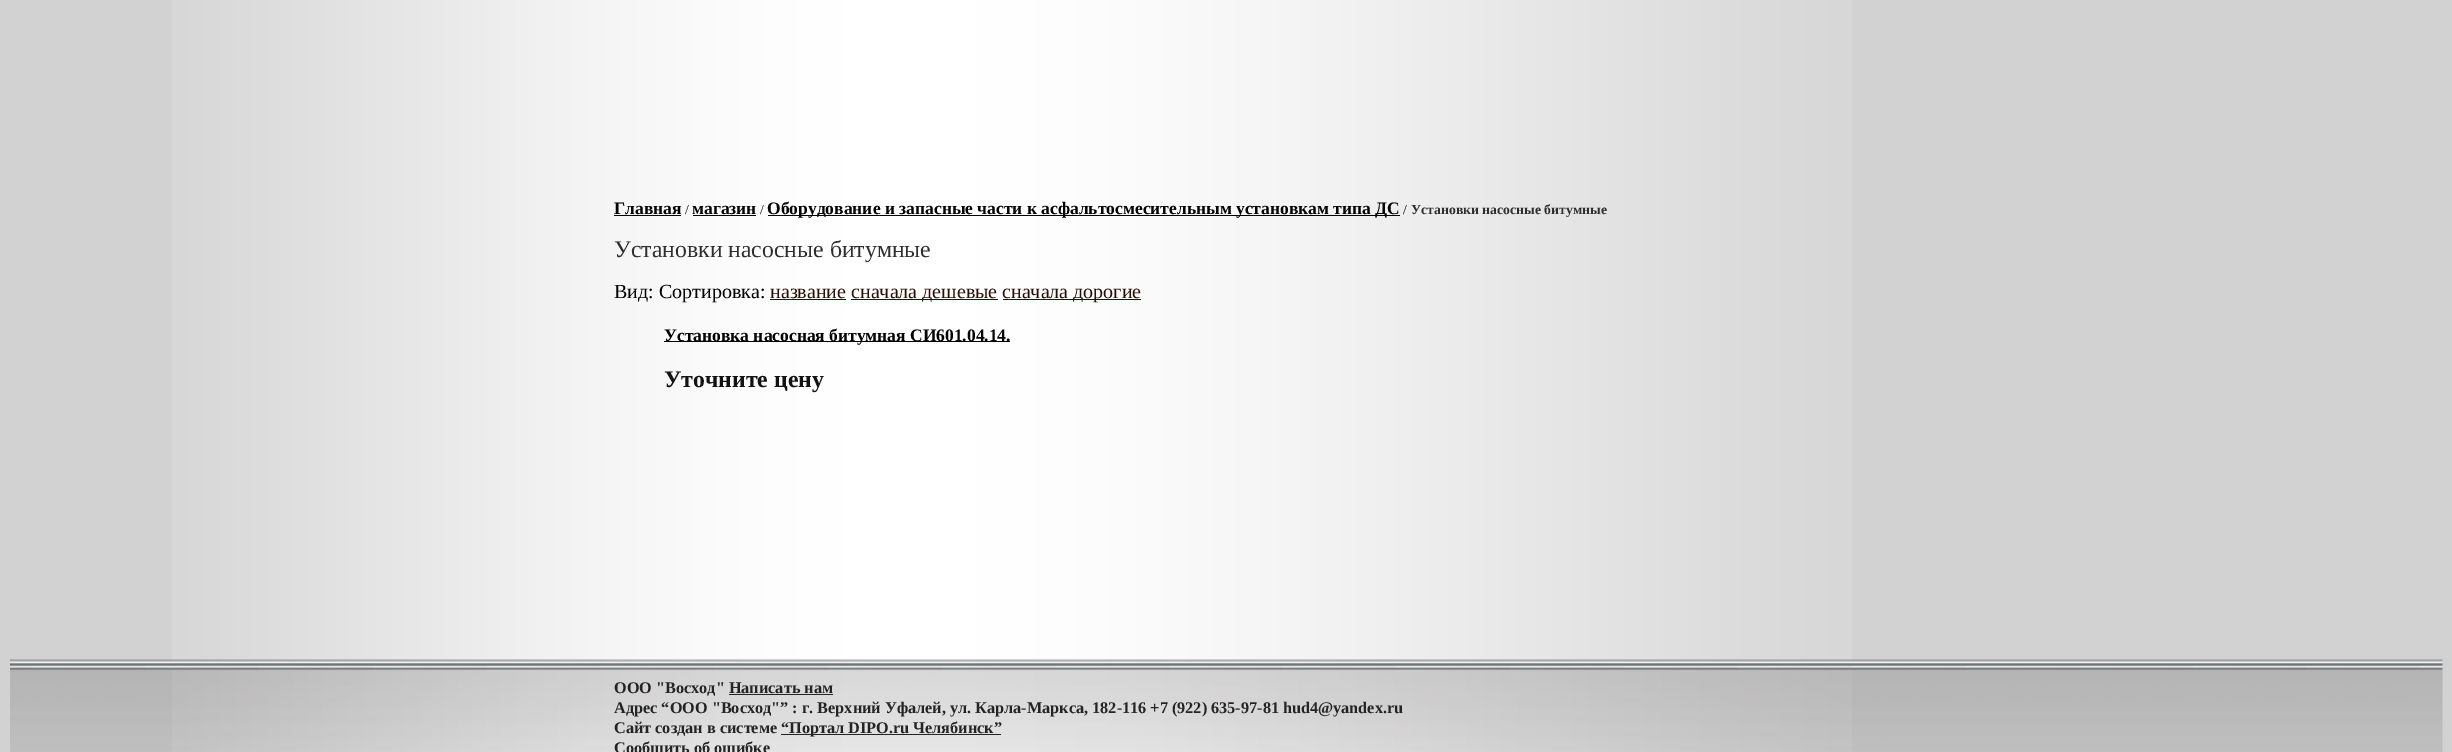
%!PS-Adobe-3.0
%%BoundingBox: 0 0 2452 752
%%LanguageLevel: 3
%%Pages: 1
%%EndComments
%%BeginProlog
/drawimage { 5 dict begin { /h /w /y /x /name } { exch def } forall
  gsave x y translate w h scale
  w h 8 [w 0 0 h 0 0] name (r) file false 3 colorimage grestore end } def
%%EndProlog
%%BeginSetup
<< /PageSize [2452 752] >> setpagedevice
%%EndSetup
%%Page: 1 1
0 752 translate 1 -1 scale
4 setmiterlimit
0.824 setgray
0 0 2452 752 rectfill
(images/1.raw) 172 0 1680 752 drawimage
0.004 setgray
614 215 67 1 rectfill
693 215 63 1 rectfill
768 215 632 1 rectfill
0.169 0.055 0.027 setrgbcolor
770 299 76 1 rectfill
851 299 147 1 rectfill
1003 299 138 1 rectfill
0.004 setgray
664 341 346 1 rectfill
(images/2.raw) 10 659 2433 93 drawimage
0.141 setgray
729 694 104 1 rectfill
781 734 220 1 rectfill
/LiberationSerif-Bold [17.5 0 0 -17.5 0 0] selectfont
0.004 setgray
614 214 moveto (Главная) show
/LiberationSerif-Regular [13.75 0 0 -13.75 0 0] selectfont
685 214 moveto (/) show
/LiberationSerif-Bold [17.5 0 0 -17.5 0 0] selectfont
692 214 moveto (магазин) show
/LiberationSerif-Regular [13.75 0 0 -13.75 0 0] selectfont
760 214 moveto (/) show
/LiberationSerif-Bold [17.5 0 0 -17.5 0 0] selectfont
767 214 moveto (Оборудование и запасные части к асфальтосмесительным установкам типа ДС) show
/LiberationSerif-Regular [13.75 0 0 -13.75 0 0] selectfont
1403 214 moveto (/) show
/LiberationSerif-Bold [13.75 0 0 -13.75 0 0] selectfont
0.18 setgray
1411 214 moveto (Установки насосные битумные) show
/LiberationSerif-Regular [23.75 0 0 -23.75 0 0] selectfont
614 257 moveto (Установки насосные битумные) show
/LiberationSerif-Regular [20 0 0 -20 0 0] selectfont
0.004 setgray
614 298 moveto (Вид: Сортировка:) show
0.169 0.055 0.027 setrgbcolor
770 298 moveto (название) show
851 298 moveto (сначала дешевые) show
1002 298 moveto (сначала дорогие) show
/LiberationSerif-Bold [17.5 0 0 -17.5 0 0] selectfont
0.004 setgray
664 341 moveto (Установка насосная битумная СИ601.04.14.) show
/LiberationSerif-Bold [23.75 0 0 -23.75 0 0] selectfont
0.075 setgray
664 387 moveto (Уточните цену) show
/LiberationSerif-Bold [16.25 0 0 -16.25 0 0] selectfont
0.141 setgray
614 693 moveto (ООО "Восход" Написать нам) show
614 713 moveto (Адрес “ООО "Восход"” : г. Верхний Уфалей, ул. Карла-Маркса, 182-116 +7 \(922\) 635-97-81 hud4@yandex.ru) show
614 733 moveto (Сайт создан в системе) show
781 733 moveto (“Портал DIPO.ru Челябинск”) show
614 753 moveto (Сообщить об ошибке) show
showpage
%%EOF
